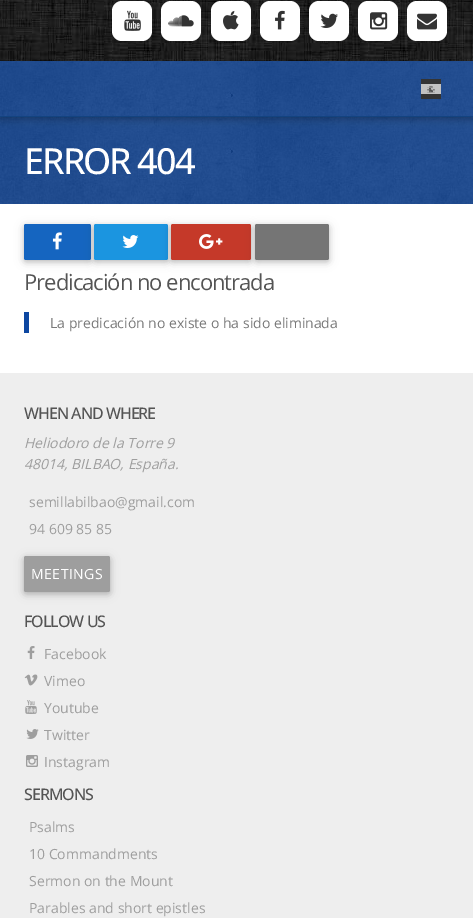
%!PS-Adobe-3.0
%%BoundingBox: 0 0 473 918
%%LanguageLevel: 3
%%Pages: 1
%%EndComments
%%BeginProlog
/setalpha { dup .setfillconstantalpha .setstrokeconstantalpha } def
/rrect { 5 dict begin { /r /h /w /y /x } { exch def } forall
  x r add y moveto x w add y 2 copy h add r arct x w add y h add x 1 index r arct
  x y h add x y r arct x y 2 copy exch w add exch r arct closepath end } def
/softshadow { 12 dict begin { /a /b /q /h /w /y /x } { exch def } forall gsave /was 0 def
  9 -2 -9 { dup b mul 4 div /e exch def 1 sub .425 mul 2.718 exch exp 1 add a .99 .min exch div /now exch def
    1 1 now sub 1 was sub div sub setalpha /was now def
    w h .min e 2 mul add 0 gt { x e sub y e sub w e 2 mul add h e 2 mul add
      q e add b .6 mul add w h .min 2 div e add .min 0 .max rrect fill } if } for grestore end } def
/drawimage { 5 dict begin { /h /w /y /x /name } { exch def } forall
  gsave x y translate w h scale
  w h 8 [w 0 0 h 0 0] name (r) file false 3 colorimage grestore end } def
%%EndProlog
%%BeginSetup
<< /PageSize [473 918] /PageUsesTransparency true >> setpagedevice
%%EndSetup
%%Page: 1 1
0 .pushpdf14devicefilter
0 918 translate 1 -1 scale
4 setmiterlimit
1 setgray
0 0 473 918 rectfill
(images/1.raw) 0 0 473 61 drawimage
112 1 40 40 10 rrect fill
(images/2.raw) 124 10 17 21 drawimage
161 1 40 40 10 rrect fill
(images/3.raw) 168 15 26 12 drawimage
211 1 40 40 10 rrect fill
(images/4.raw) 223 10 16 20 drawimage
260 1 40 40 10 rrect fill
(images/5.raw) 275 10 10 20 drawimage
309 1 40 40 10 rrect fill
(images/6.raw) 320 13 18 15 drawimage
358 1 40 40 10 rrect fill
(images/7.raw) 370 12 18 18 drawimage
407 1 40 40 10 rrect fill
(images/8.raw) 417 13 20 17 drawimage
0.075 0.263 0.561 setrgbcolor
0 117 473 87 rectfill
(images/11.raw) 0 117 473 87 drawimage
0 setgray
0 63 473 56 0 5 0.12 softshadow
0 63 473 56 0 2.5 0.16 softshadow
0.075 0.263 0.561 setrgbcolor
0 61 473 55 rectfill
(images/9.raw) 0 61 473 55 drawimage
0.075 0.263 0.502 setrgbcolor
0 116 473 1 rectfill
(images/10.raw) 421 79 20 20 drawimage
0 setgray
24 226 67 36 2 5 0.12 softshadow
24 226 67 36 2 2.5 0.16 softshadow
0.082 0.396 0.753 setrgbcolor
24 224 67 36 2 rrect fill
(images/12.raw) 52 232 10 18 drawimage
0 setgray
94 226 74 36 2 5 0.12 softshadow
94 226 74 36 2 2.5 0.16 softshadow
0.106 0.584 0.878 setrgbcolor
94 224 74 36 2 rrect fill
(images/13.raw) 122 235 17 13 drawimage
0 setgray
171 226 80 36 2 5 0.12 softshadow
171 226 80 36 2 2.5 0.16 softshadow
0.773 0.224 0.161 setrgbcolor
171 224 80 36 2 rrect fill
(images/14.raw) 199 234 24 15 drawimage
0 setgray
255 226 74 36 2 5 0.12 softshadow
255 226 74 36 2 2.5 0.16 softshadow
0.459 setgray
255 224 74 36 2 rrect fill
0.051 0.278 0.631 setrgbcolor
24 312 5 21 rectfill
0.933 setgray
0 373 473 545 rectfill
0 setgray
24 558 86 36 2 5 0.12 softshadow
24 558 86 36 2 2.5 0.16 softshadow
0.62 setgray
24 556 86 36 2 rrect fill
(images/15.raw) 27 646 8 13 drawimage
(images/16.raw) 24 674 14 12 drawimage
(images/17.raw) 25 700 12 14 drawimage
(images/18.raw) 26 729 13 10 drawimage
(images/19.raw) 26 755 12 12 drawimage
/OpenSans-Medium [36 0 0 -36 0 0] selectfont
1 setgray
24 174 moveto -2 0 (ERROR 404) ashow
/OpenSans-Regular [22 0 0 -22 0 0] selectfont
0.329 setgray
24 290 moveto -1 0 (Predicación no encontrada) ashow
/OpenSans-Regular [14 0 0 -14 0 0] selectfont
0.475 setgray
50 328 moveto (La predicación no existe o ha sido eliminada) show
/OpenSans-Medium [16 0 0 -16 0 0] selectfont
0.329 setgray
24 419 moveto -1 0 (WHEN AND WHERE) ashow
/OpenSans-Italic [14 0 0 -14 0 0] selectfont
0.62 setgray
24 448 moveto (Heliodoro de la Torre 9) show
24 469 moveto (48014, BILBAO, España.) show
/OpenSans-Regular [14 0 0 -14 0 0] selectfont
29 507 moveto (semillabilbao@gmail.com) show
29 534 moveto (94 609 85 85) show
1 setgray
31 579 moveto 0.5 0 (MEETINGS) ashow
/OpenSans-Medium [16 0 0 -16 0 0] selectfont
0.329 setgray
24 627 moveto -1 0 (FOLLOW US) ashow
/OpenSans-Regular [14 0 0 -14 0 0] selectfont
0.62 setgray
44 659 moveto (Facebook) show
44 686 moveto (Vimeo) show
44 713 moveto (Youtube) show
44 740 moveto (Twitter) show
44 767 moveto (Instagram) show
/OpenSans-Medium [16 0 0 -16 0 0] selectfont
0.329 setgray
24 800 moveto -1 0 (SERMONS) ashow
/OpenSans-Regular [14 0 0 -14 0 0] selectfont
0.62 setgray
29 832 moveto (Psalms) show
29 859 moveto (10 Commandments) show
29 886 moveto (Sermon on the Mount) show
29 913 moveto (Parables and short epistles) show
.poppdf14devicefilter showpage
%%EOF
